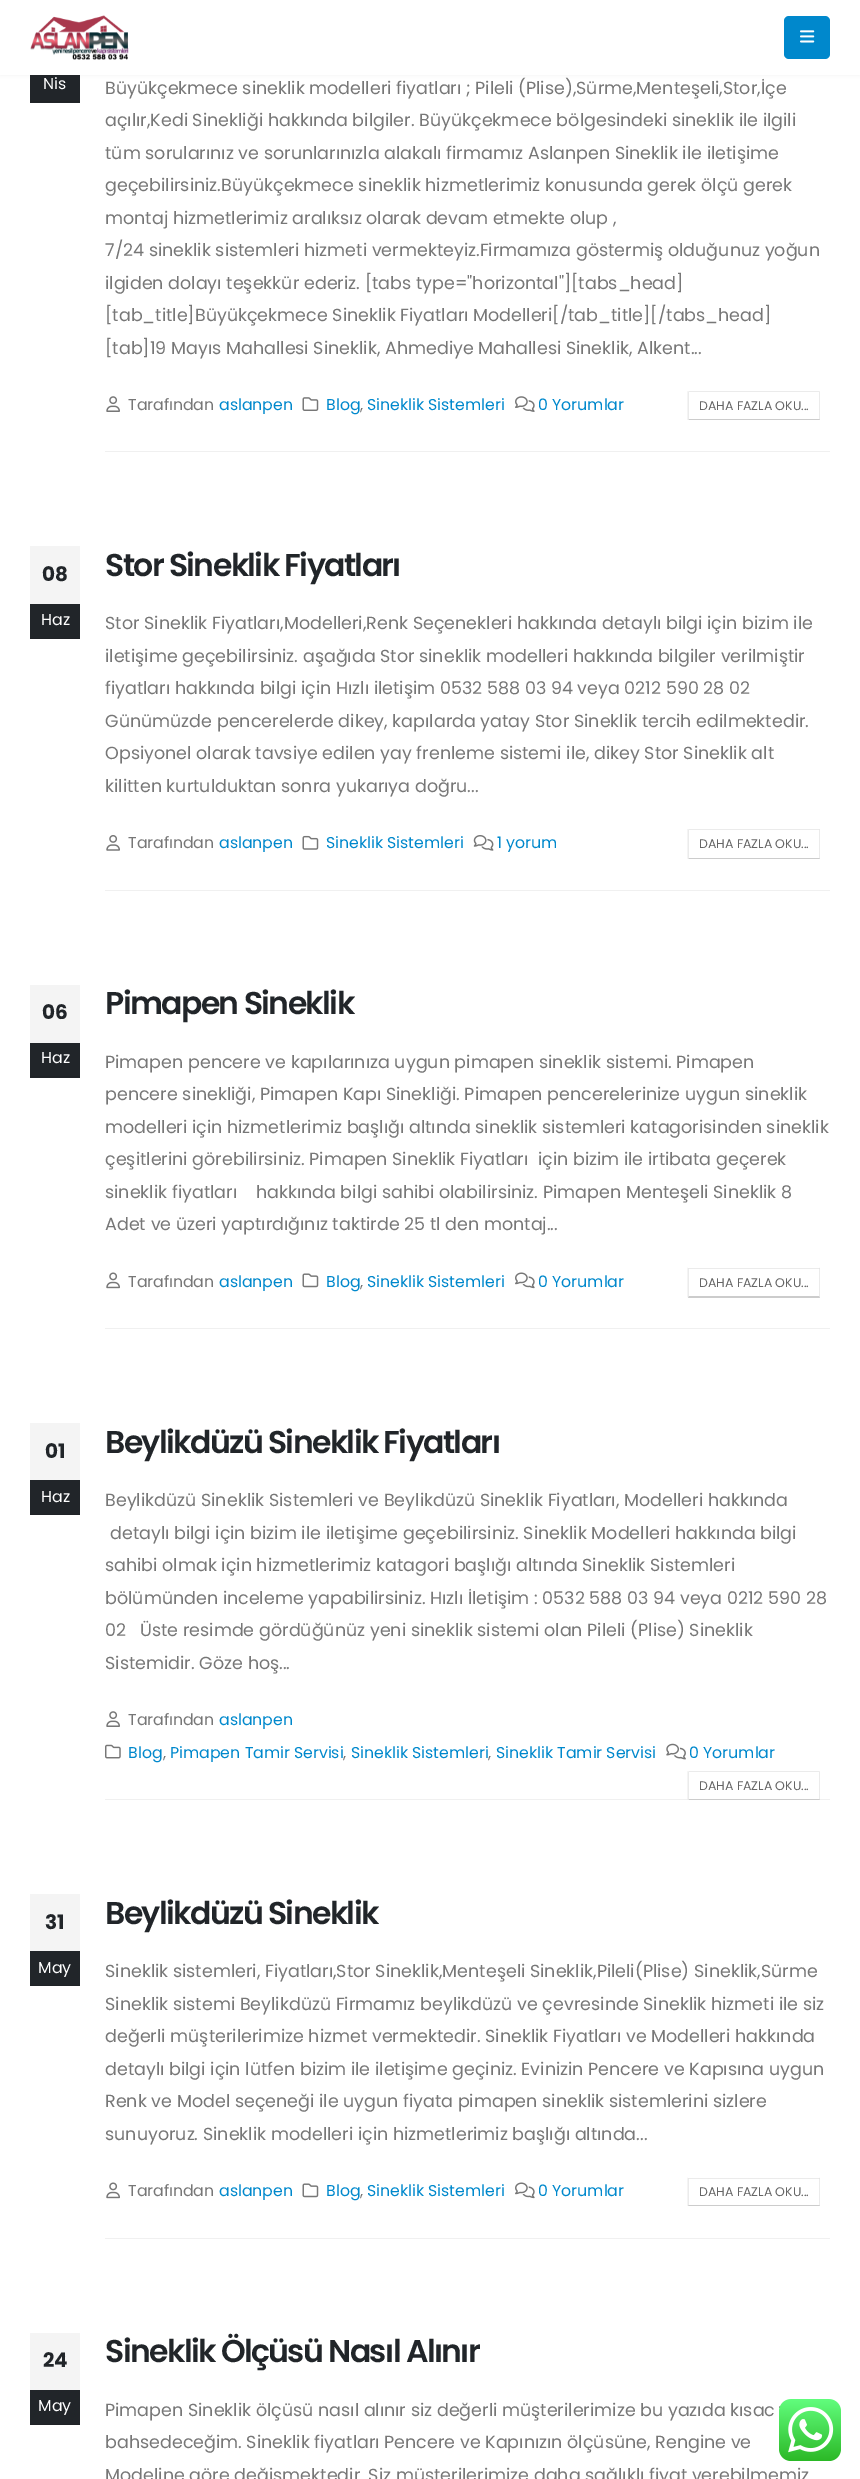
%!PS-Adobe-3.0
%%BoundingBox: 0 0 860 2479
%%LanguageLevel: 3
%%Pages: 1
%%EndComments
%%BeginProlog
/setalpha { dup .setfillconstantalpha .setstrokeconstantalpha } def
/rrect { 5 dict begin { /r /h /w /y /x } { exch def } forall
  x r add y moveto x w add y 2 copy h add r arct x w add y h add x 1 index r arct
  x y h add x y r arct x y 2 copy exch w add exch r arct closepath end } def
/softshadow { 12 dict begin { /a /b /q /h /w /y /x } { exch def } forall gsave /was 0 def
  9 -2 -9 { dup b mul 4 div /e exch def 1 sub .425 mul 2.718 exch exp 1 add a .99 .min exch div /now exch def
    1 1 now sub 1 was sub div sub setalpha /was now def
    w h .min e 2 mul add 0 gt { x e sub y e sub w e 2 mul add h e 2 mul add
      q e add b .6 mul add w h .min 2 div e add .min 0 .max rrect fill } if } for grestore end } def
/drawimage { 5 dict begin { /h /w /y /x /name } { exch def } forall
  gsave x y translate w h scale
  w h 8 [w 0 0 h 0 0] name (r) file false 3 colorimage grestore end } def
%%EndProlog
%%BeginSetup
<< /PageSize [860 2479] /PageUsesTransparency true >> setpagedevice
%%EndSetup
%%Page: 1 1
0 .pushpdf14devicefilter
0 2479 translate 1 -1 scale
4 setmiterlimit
1 setgray
0 0 860 2479 rectfill
0.129 0.145 0.161 setrgbcolor
30 75 50 28 rectfill
0 setgray
0 0 860 75 0 2 0.06 softshadow
1 setgray
0 0 860 75 rectfill
(images/1.raw) 30 15 99 45 drawimage
0 0.533 0.8 setrgbcolor
784 16 46 43 5 rrect fill
(images/2.raw) 800 30 15 13 drawimage
0.941 setgray
105 451 725 1 rectfill
0.122 0.133 0.149 setrgbcolor
30 101 50 1 rectfill
(images/3.raw) 106 396 14 16 drawimage
(images/4.raw) 302 397 17 14 drawimage
(images/5.raw) 515 396 20 16 drawimage
0.922 setgray
newpath 688 391 moveto 820 391 lineto 819 392 lineto 689 392 lineto closepath fill
newpath 820 391 moveto 820 420 lineto 819 419 lineto 819 392.5 lineto closepath fill
0.2 setalpha
0 setgray
newpath 820 420 moveto 688 420 lineto 689 419 lineto 819 419 lineto closepath fill
1 setalpha
0.922 setgray
newpath 687.5 420 moveto 687.5 391 lineto 689 392.5 lineto 689 419 lineto closepath fill
0.941 setgray
105 890 725 1 rectfill
0.957 setgray
30 546 50 58 rectfill
0.129 0.145 0.161 setrgbcolor
30 604 50 34 rectfill
0.122 0.133 0.149 setrgbcolor
30 638 50 1 rectfill
(images/6.raw) 106 835 14 16 drawimage
(images/7.raw) 302 835 17 15 drawimage
(images/8.raw) 473 835 21 16 drawimage
0.922 setgray
newpath 688 829 moveto 820 829 lineto 819 830 lineto 689 830 lineto closepath fill
0.08 setalpha
0 setgray
newpath 820 829 moveto 820 859 lineto 819 857.5 lineto 819 830 lineto closepath fill
0.2 setalpha
newpath 820 859 moveto 688 859 lineto 689 858 lineto 819 858 lineto closepath fill
1 setalpha
0.922 setgray
newpath 687.5 859 moveto 687.5 829 lineto 689 830 lineto 689 857.5 lineto closepath fill
0.941 setgray
105 1328 725 1 rectfill
0.957 setgray
30 985 50 58 rectfill
0.129 0.145 0.161 setrgbcolor
30 1043 50 35 rectfill
0.122 0.133 0.149 setrgbcolor
30 1076 50 1 rectfill
(images/9.raw) 106 1272 14 17 drawimage
(images/10.raw) 302 1273 17 15 drawimage
(images/11.raw) 515 1272 20 17 drawimage
0.922 setgray
newpath 688 1268 moveto 820 1268 lineto 819 1269 lineto 689 1269 lineto closepath fill
0.08 setalpha
0 setgray
newpath 820 1267.5 moveto 820 1297.5 lineto 819 1296 lineto 819 1269 lineto closepath fill
1 setalpha
0.8 setgray
newpath 820 1298 moveto 688 1298 lineto 689 1296 lineto 819 1296 lineto closepath fill
0.08 setalpha
0 setgray
newpath 687.5 1297.5 moveto 687.5 1267.5 lineto 689 1269 lineto 689 1296 lineto closepath fill
1 setalpha
0.941 setgray
105 1799 725 1 rectfill
0.957 setgray
30 1423 50 57 rectfill
0.129 0.145 0.161 setrgbcolor
30 1480 50 34 rectfill
0.122 0.133 0.149 setrgbcolor
30 1514 50 1 rectfill
(images/3.raw) 106 1711 14 16 drawimage
(images/12.raw) 105 1744 16 15 drawimage
(images/13.raw) 666 1743 20 17 drawimage
1 setgray
688 1799 132 1 rectfill
0.922 setgray
newpath 688 1771 moveto 820 1771 lineto 819 1772 lineto 689 1772 lineto closepath fill
newpath 820 1771 moveto 820 1800 lineto 819 1799 lineto 819 1772.5 lineto closepath fill
0.2 setalpha
0 setgray
newpath 820 1800 moveto 688 1800 lineto 689 1799 lineto 819 1799 lineto closepath fill
1 setalpha
0.922 setgray
newpath 687.5 1800 moveto 687.5 1771 lineto 689 1772.5 lineto 689 1799 lineto closepath fill
0.941 setgray
105 2238 725 1 rectfill
0.957 setgray
30 1894 50 57 rectfill
0.129 0.145 0.161 setrgbcolor
30 1951 50 34 rectfill
0.122 0.133 0.149 setrgbcolor
30 1985 50 1 rectfill
(images/9.raw) 106 2182 14 17 drawimage
(images/10.raw) 302 2183 17 15 drawimage
(images/11.raw) 515 2182 20 17 drawimage
0.922 setgray
newpath 688 2178 moveto 820 2178 lineto 819 2179 lineto 689 2179 lineto closepath fill
0.08 setalpha
0 setgray
newpath 820 2177.5 moveto 820 2206 lineto 819 2205 lineto 819 2179 lineto closepath fill
0.2 setalpha
newpath 820 2206 moveto 688 2206 lineto 689 2205 lineto 819 2205 lineto closepath fill
0.08 setalpha
newpath 687.5 2206 moveto 687.5 2177.5 lineto 689 2179 lineto 689 2205 lineto closepath fill
1 setalpha
0.957 setgray
30 2333 50 57 rectfill
0.129 0.145 0.161 setrgbcolor
30 2390 50 34 rectfill
0.122 0.133 0.149 setrgbcolor
30 2424 50 1 rectfill
(images/14.raw) 779 2399 62 62 drawimage
/Poppins-Regular [15.75 0 0 -15.75 0 0] selectfont
1 setgray
43 89 moveto (Nis) show
/Poppins-Regular [17.5 0 0 -17.5 0 0] selectfont
0.467 setgray
105 94 moveto (Büyükçekmece sineklik modelleri fiyatları ; Pileli \(Plise\),Sürme,Menteşeli,Stor,İçe) show
105 126 moveto (açılır,Kedi Sinekliği hakkında bilgiler. Büyükçekmece bölgesindeki sineklik ile ilgili) show
105 159 moveto (tüm sorularınız ve sorunlarınızla alakalı firmamız Aslanpen Sineklik ile iletişime) show
105 191 moveto (geçebilirsiniz.Büyükçekmece sineklik hizmetlerimiz konusunda gerek ölçü gerek) show
105 224 moveto (montaj hizmetlerimiz aralıksız olarak devam etmekte olup ,) show
105 256 moveto (7/24 sineklik sistemleri hizmeti vermekteyiz.Firmamıza göstermiş olduğunuz yoğun) show
105 289 moveto (ilgiden dolayı teşekkür ederiz. [tabs type="horizontal"][tabs_head]) show
105 321 moveto ([tab_title]Büyükçekmece Sineklik Fiyatları Modelleri[/tab_title][/tabs_head]) show
105 354 moveto ([tab]19 Mayıs Mahallesi Sineklik, Ahmediye Mahallesi Sineklik, Alkent...) show
/Poppins-Regular [15.75 0 0 -15.75 0 0] selectfont
128 410 moveto (Tarafından) show
0 0.533 0.8 setrgbcolor
219 410 moveto (aslanpen) show
326 410 moveto (Blog) show
0.467 setgray
360 410 moveto (,) show
0 0.533 0.8 setrgbcolor
367 410 moveto (Sineklik Sistemleri) show
538 410 moveto (0 Yorumlar) show
/Poppins-Regular [12.5 0 0 -12.5 0 0] selectfont
0.4 setgray
699 410 moveto (DAHA FAZLA OKU...) show
/Poppins-Bold [20 0 0 -20 0 0] selectfont
0.129 0.145 0.161 setrgbcolor
42 581 moveto (08) show
/Poppins-Regular [15.75 0 0 -15.75 0 0] selectfont
1 setgray
41 625 moveto (Haz) show
/Poppins-SemiBold [31.5 0 0 -31.5 0 0] selectfont
0.129 0.145 0.161 setrgbcolor
105 576 moveto -1.6 0 (Stor Sineklik Fiyatları) ashow
/Poppins-Regular [17.5 0 0 -17.5 0 0] selectfont
0.467 setgray
105 629 moveto (Stor Sineklik Fiyatları,Modelleri,Renk Seçenekleri hakkında detaylı bilgi için bizim ile) show
105 662 moveto (iletişime geçebilirsiniz. aşağıda Stor sineklik modelleri hakkında bilgiler verilmiştir) show
105 694 moveto (fiyatları hakkında bilgi için Hızlı iletişim 0532 588 03 94 veya 0212 590 28 02) show
105 727 moveto (Günümüzde pencerelerde dikey, kapılarda yatay Stor Sineklik tercih edilmektedir.) show
105 759 moveto (Opsiyonel olarak tavsiye edilen yay frenleme sistemi ile, dikey Stor Sineklik alt) show
105 792 moveto (kilitten kurtulduktan sonra yukarıya doğru...) show
/Poppins-Regular [15.75 0 0 -15.75 0 0] selectfont
128 848 moveto (Tarafından) show
0 0.533 0.8 setrgbcolor
219 848 moveto (aslanpen) show
326 848 moveto (Sineklik Sistemleri) show
497 848 moveto (1 yorum) show
/Poppins-Regular [12.5 0 0 -12.5 0 0] selectfont
0.4 setgray
699 848 moveto (DAHA FAZLA OKU...) show
/Poppins-Bold [20 0 0 -20 0 0] selectfont
0.129 0.145 0.161 setrgbcolor
42 1019 moveto (06) show
/Poppins-Regular [15.75 0 0 -15.75 0 0] selectfont
1 setgray
41 1063 moveto (Haz) show
/Poppins-SemiBold [31.5 0 0 -31.5 0 0] selectfont
0.129 0.145 0.161 setrgbcolor
105 1014 moveto -1.6 0 (Pimapen Sineklik) ashow
/Poppins-Regular [17.5 0 0 -17.5 0 0] selectfont
0.467 setgray
105 1068 moveto (Pimapen pencere ve kapılarınıza uygun pimapen sineklik sistemi. Pimapen) show
105 1100 moveto (pencere sinekliği, Pimapen Kapı Sinekliği. Pimapen pencerelerinize uygun sineklik) show
105 1133 moveto (modelleri için hizmetlerimiz başlığı altında sineklik sistemleri katagorisinden sineklik) show
105 1165 moveto (çeşitlerini görebilirsiniz. Pimapen Sineklik Fiyatları  için bizim ile irtibata geçerek) show
105 1198 moveto (sineklik fiyatları    hakkında bilgi sahibi olabilirsiniz. Pimapen Menteşeli Sineklik 8) show
105 1230 moveto (Adet ve üzeri yaptırdığınız taktirde 25 tl den montaj...) show
/Poppins-Regular [15.75 0 0 -15.75 0 0] selectfont
128 1287 moveto (Tarafından) show
0 0.533 0.8 setrgbcolor
219 1287 moveto (aslanpen) show
326 1287 moveto (Blog) show
0.467 setgray
360 1287 moveto (,) show
0 0.533 0.8 setrgbcolor
367 1287 moveto (Sineklik Sistemleri) show
538 1287 moveto (0 Yorumlar) show
/Poppins-Regular [12.5 0 0 -12.5 0 0] selectfont
0.4 setgray
699 1287 moveto (DAHA FAZLA OKU...) show
/Poppins-Bold [20 0 0 -20 0 0] selectfont
0.129 0.145 0.161 setrgbcolor
45 1458 moveto (01) show
/Poppins-Regular [15.75 0 0 -15.75 0 0] selectfont
1 setgray
41 1502 moveto (Haz) show
/Poppins-SemiBold [31.5 0 0 -31.5 0 0] selectfont
0.129 0.145 0.161 setrgbcolor
105 1453 moveto -1.6 0 (Beylikdüzü Sineklik Fiyatları) ashow
/Poppins-Regular [17.5 0 0 -17.5 0 0] selectfont
0.467 setgray
105 1506 moveto (Beylikdüzü Sineklik Sistemleri ve Beylikdüzü Sineklik Fiyatları, Modelleri hakkında) show
110 1539 moveto (detaylı bilgi için bizim ile iletişime geçebilirsiniz. Sineklik Modelleri hakkında bilgi) show
105 1571 moveto (sahibi olmak için hizmetlerimiz katagori başlığı altında Sineklik Sistemleri) show
105 1604 moveto (bölümünden inceleme yapabilirsiniz. Hızlı İletişim : 0532 588 03 94 veya 0212 590 28) show
105 1636 moveto (02) show
140 1636 moveto (Üste resimde gördüğünüz yeni sineklik sistemi olan Pileli \(Plise\) Sineklik) show
105 1669 moveto (Sistemidir. Göze hoş...) show
/Poppins-Regular [15.75 0 0 -15.75 0 0] selectfont
128 1725 moveto (Tarafından) show
0 0.533 0.8 setrgbcolor
219 1725 moveto (aslanpen) show
128 1758 moveto (Blog) show
0.467 setgray
163 1758 moveto (,) show
0 0.533 0.8 setrgbcolor
170 1758 moveto (Pimapen Tamir Servisi) show
0.467 setgray
343 1758 moveto (,) show
0 0.533 0.8 setrgbcolor
351 1758 moveto (Sineklik Sistemleri) show
0.467 setgray
488 1758 moveto (,) show
0 0.533 0.8 setrgbcolor
496 1758 moveto (Sineklik Tamir Servisi) show
689 1758 moveto (0 Yorumlar) show
/Poppins-Regular [12.5 0 0 -12.5 0 0] selectfont
0.4 setgray
699 1790 moveto (DAHA FAZLA OKU...) show
/Poppins-Bold [20 0 0 -20 0 0] selectfont
0.129 0.145 0.161 setrgbcolor
45 1929 moveto (31) show
/Poppins-Regular [15.75 0 0 -15.75 0 0] selectfont
1 setgray
38 1973 moveto (May) show
/Poppins-SemiBold [31.5 0 0 -31.5 0 0] selectfont
0.129 0.145 0.161 setrgbcolor
105 1924 moveto -1.6 0 (Beylikdüzü Sineklik) ashow
/Poppins-Regular [17.5 0 0 -17.5 0 0] selectfont
0.467 setgray
105 1977 moveto (Sineklik sistemleri, Fiyatları,Stor Sineklik,Menteşeli Sineklik,Pileli\(Plise\) Sineklik,Sürme) show
105 2010 moveto (Sineklik sistemi Beylikdüzü Firmamız beylikdüzü ve çevresinde Sineklik hizmeti ile siz) show
105 2042 moveto (değerli müşterilerimize hizmet vermektedir. Sineklik Fiyatları ve Modelleri hakkında) show
105 2075 moveto (detaylı bilgi için lütfen bizim ile iletişime geçiniz. Evinizin Pencere ve Kapısına uygun) show
105 2107 moveto (Renk ve Model seçeneği ile uygun fiyata pimapen sineklik sistemlerini sizlere) show
105 2140 moveto (sunuyoruz. Sineklik modelleri için hizmetlerimiz başlığı altında...) show
/Poppins-Regular [15.75 0 0 -15.75 0 0] selectfont
128 2196 moveto (Tarafından) show
0 0.533 0.8 setrgbcolor
219 2196 moveto (aslanpen) show
326 2196 moveto (Blog) show
0.467 setgray
360 2196 moveto (,) show
0 0.533 0.8 setrgbcolor
367 2196 moveto (Sineklik Sistemleri) show
538 2196 moveto (0 Yorumlar) show
/Poppins-Regular [12.5 0 0 -12.5 0 0] selectfont
0.4 setgray
699 2196 moveto (DAHA FAZLA OKU...) show
/Poppins-Bold [20 0 0 -20 0 0] selectfont
0.129 0.145 0.161 setrgbcolor
43 2367 moveto (24) show
/Poppins-Regular [15.75 0 0 -15.75 0 0] selectfont
1 setgray
38 2411 moveto (May) show
/Poppins-SemiBold [31.5 0 0 -31.5 0 0] selectfont
0.129 0.145 0.161 setrgbcolor
105 2362 moveto -1.6 0 (Sineklik Ölçüsü Nasıl Alınır) ashow
/Poppins-Regular [17.5 0 0 -17.5 0 0] selectfont
0.467 setgray
105 2416 moveto (Pimapen Sineklik ölçüsü nasıl alınır siz değerli müşterilerimize bu yazıda kısac) show
105 2448 moveto (bahsedeceğim. Sineklik fiyatları Pencere ve Kapınızın ölçüsüne, Rengine ve) show
105 2481 moveto (Modeline göre değişmektedir. Siz müşterilerimize daha sağlıklı fiyat verebilmemiz) show
.poppdf14devicefilter showpage
%%EOF
